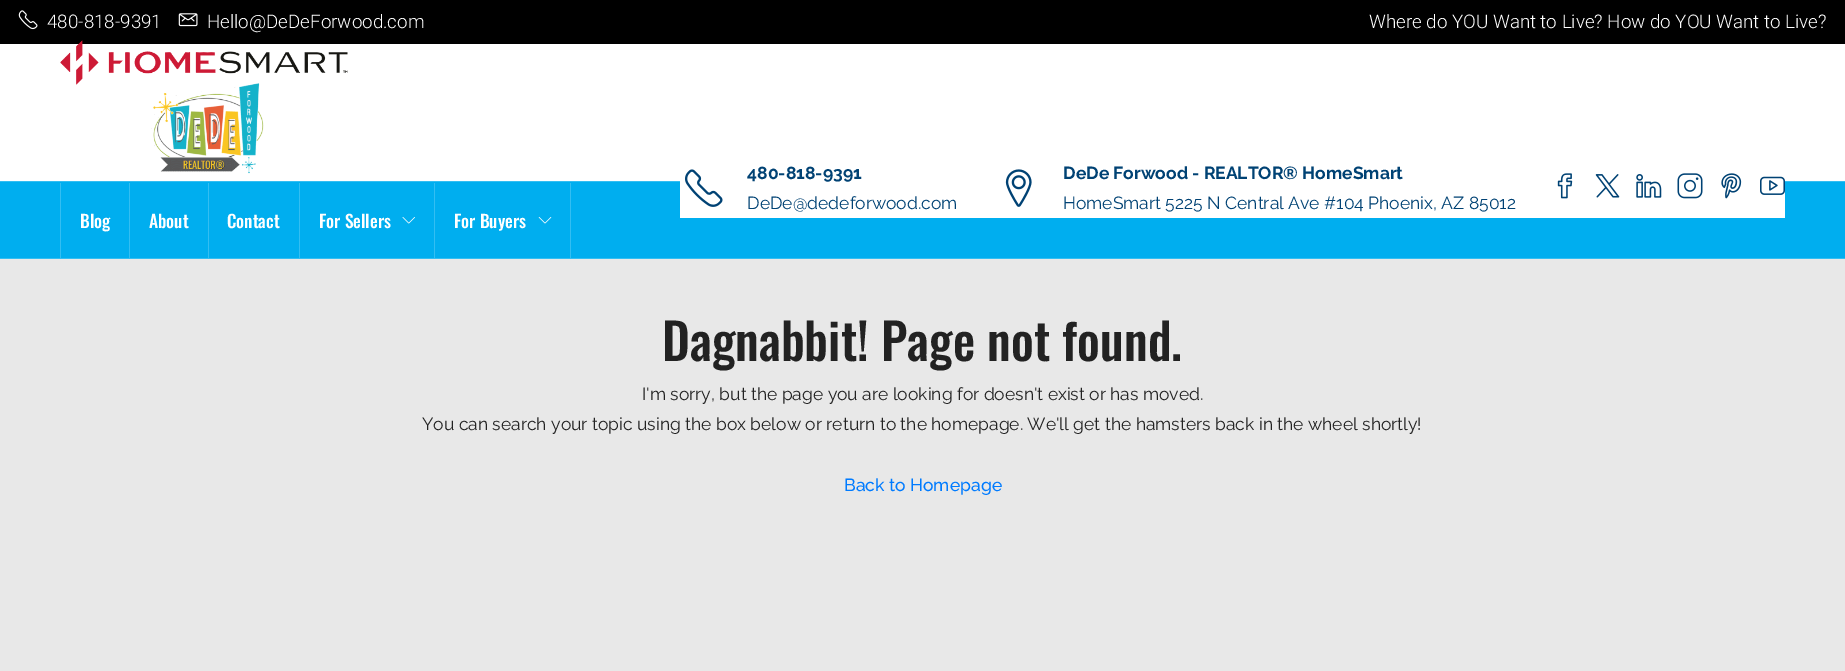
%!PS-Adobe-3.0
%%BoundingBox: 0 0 1845 671
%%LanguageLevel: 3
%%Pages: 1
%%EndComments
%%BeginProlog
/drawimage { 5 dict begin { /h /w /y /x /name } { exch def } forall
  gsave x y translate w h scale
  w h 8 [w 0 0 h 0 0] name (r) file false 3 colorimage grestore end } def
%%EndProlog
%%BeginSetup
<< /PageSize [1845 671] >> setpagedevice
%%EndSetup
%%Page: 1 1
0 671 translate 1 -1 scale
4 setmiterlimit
0.91 setgray
0 0 1845 671 rectfill
0 setgray
0 0 1845 44 rectfill
(images/1.raw) 18 10 20 20 drawimage
(images/2.raw) 178 13 20 14 drawimage
1 setgray
0 44 1845 137 rectfill
(images/3.raw) 60 40 288 134 drawimage
0 0.682 0.937 setrgbcolor
0 182 1845 76 rectfill
0.2 0.745 0.949 setrgbcolor
0 181 1845 1 rectfill
1 setgray
680 181 1105 37 rectfill
(images/4.raw) 685 169 38 38 drawimage
(images/5.raw) 1005 169 27 38 drawimage
(images/6.raw) 1557 173 16 26 drawimage
(images/7.raw) 1595 174 25 24 drawimage
(images/8.raw) 1636 174 26 24 drawimage
(images/9.raw) 1677 173 26 26 drawimage
(images/10.raw) 1721 173 21 26 drawimage
(images/11.raw) 1760 176 25 19 drawimage
0.2 0.745 0.949 setrgbcolor
0 258 1845 1 rectfill
129 183 1 75 rectfill
60 183 1 75 rectfill
208 183 1 75 rectfill
299 183 1 75 rectfill
434 183 1 75 rectfill
(images/12.raw) 402 217 13 7 drawimage
570 183 1 75 rectfill
(images/13.raw) 538 217 14 7 drawimage
/Roboto-Light [18.75 0 0 -18.75 0 0] selectfont
1 setgray
47 28 moveto (480-818-9391) show
207 28 moveto (Hello@DeDeForwood.com) show
1369 28 moveto (Where do YOU Want to Live? How do YOU Want to Live?) show
/Raleway-Bold [17.5 0 0 -17.5 0 0] selectfont
0 0.259 0.455 setrgbcolor
747 179 moveto (480-818-9391) show
/Raleway-Regular [17.5 0 0 -17.5 0 0] selectfont
747 209 moveto (DeDe@dedeforwood.com) show
/Raleway-Bold [17.5 0 0 -17.5 0 0] selectfont
1063 179 moveto (DeDe Forwood - REALTOR® HomeSmart) show
/Raleway-Regular [17.5 0 0 -17.5 0 0] selectfont
1063 209 moveto (HomeSmart 5225 N Central Ave #104 Phoenix, AZ 85012) show
/Oswald-Medium [17.5 0 0 -17.5 0 0] selectfont
1 setgray
80 228 moveto (Blog) show
149 228 moveto (About) show
227 228 moveto (Contact) show
319 228 moveto (For Sellers) show
454 228 moveto (For Buyers) show
/Oswald-Medium [50 0 0 -50 0 0] selectfont
0.133 setgray
662 361 moveto (Dagnabbit! Page not found.) show
/Raleway-Regular [17.5 0 0 -17.5 0 0] selectfont
642 400 moveto (I'm sorry, but the page you are looking for doesn't exist or has moved.) show
422 430 moveto (You can search your topic using the box below or return to the homepage. We'll get the hamsters back in the wheel shortly!) show
/Raleway-Medium [17.5 0 0 -17.5 0 0] selectfont
0 0.482 1 setrgbcolor
844 491 moveto (Back to Homepage) show
showpage
%%EOF
